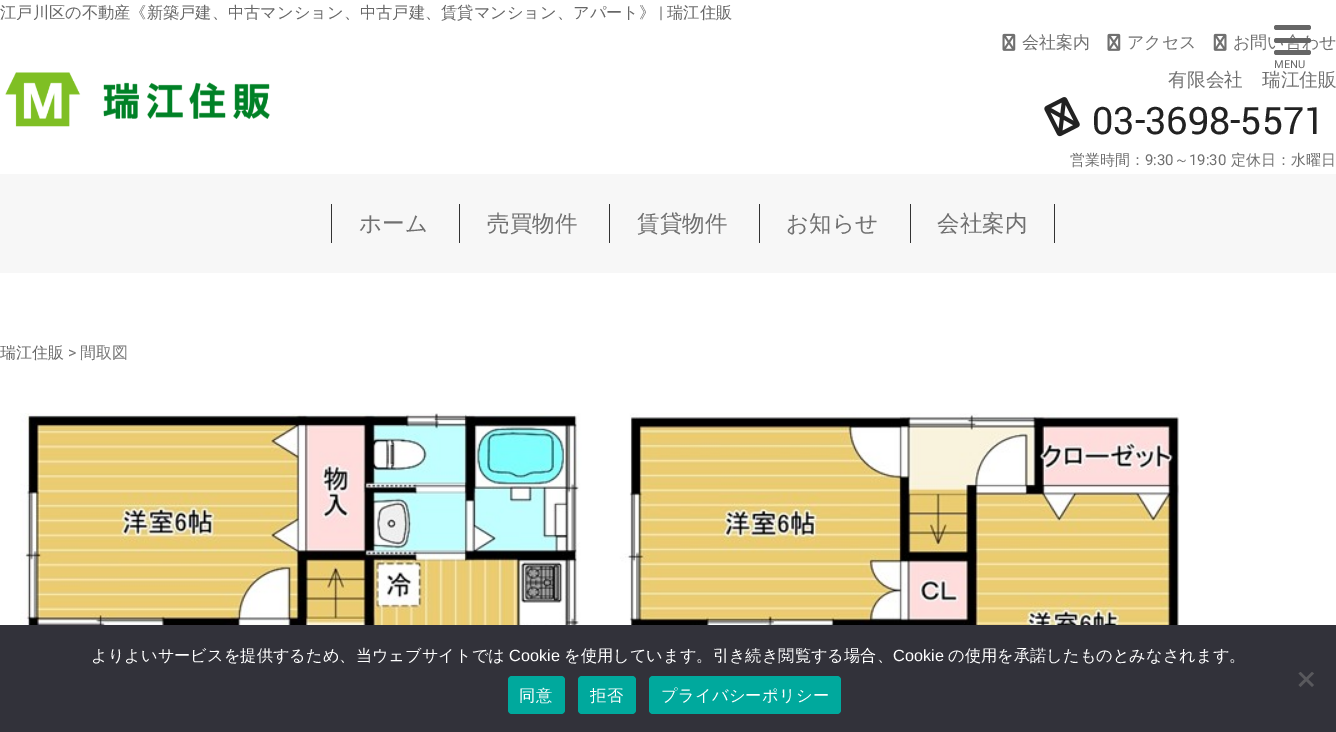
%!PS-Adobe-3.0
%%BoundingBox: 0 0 1336 732
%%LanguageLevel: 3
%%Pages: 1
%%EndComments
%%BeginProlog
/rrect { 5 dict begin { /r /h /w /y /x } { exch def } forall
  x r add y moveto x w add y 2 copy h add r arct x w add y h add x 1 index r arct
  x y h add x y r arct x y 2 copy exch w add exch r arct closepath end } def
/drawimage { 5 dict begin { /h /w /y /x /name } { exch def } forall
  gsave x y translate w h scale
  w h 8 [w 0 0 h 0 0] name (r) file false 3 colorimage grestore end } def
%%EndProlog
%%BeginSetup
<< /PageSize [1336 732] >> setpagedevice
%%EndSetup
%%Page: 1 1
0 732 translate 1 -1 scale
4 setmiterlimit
1 setgray
0 0 1336 732 rectfill
(images/1.raw) 5 72 265 55 drawimage
(images/2.raw) 1002 33 14 18 drawimage
(images/2.raw) 1107 33 14 18 drawimage
(images/3.raw) 1213 33 14 18 drawimage
(images/4.raw) 1044 97 36 40 drawimage
0.4 setgray
1274 25 37 5 2.5 rrect fill
0.969 setgray
0 174 1336 99 rectfill
0.2 setgray
331 204 1 39 rectfill
459 204 1 39 rectfill
609 204 1 39 rectfill
759 204 1 39 rectfill
1054 204 1 39 rectfill
910 204 1 39 rectfill
(images/5.raw) 20 413 1160 212 drawimage
0.196 0.196 0.227 setrgbcolor
0 625 1336 107 rectfill
0.349 0.349 0.365 setrgbcolor
newpath 1312 672 moveto 1314 673.5 lineto 1300.5 687 lineto 1298.5 685 lineto closepath fill
newpath 1298.5 673.5 moveto 1300.5 672 lineto 1314 685 lineto 1312 687 lineto closepath fill
0 0.663 0.616 setrgbcolor
508 676 57 38 4 rrect fill
578 676 58 38 4 rrect fill
649 676 192 38 4 rrect fill
/WenQuanYiZenHei-Medium [16.25 0 0 -16.25 0 0] selectfont
0.4 setgray
0 18 moveto (江戸川区の不動産《新築戸建、中古マンション、中古戸建、賃貸マンション、アパート》) show
/Roboto-Regular [16.25 0 0 -16.25 0 0] selectfont
659 18 moveto (|) show
/WenQuanYiZenHei-Medium [16.25 0 0 -16.25 0 0] selectfont
667 18 moveto (瑞江住販) show
/WenQuanYiZenHei-Medium [17 0 0 -17 0 0] selectfont
0.439 setgray
1022 48 moveto (会社案内) show
1127 48 moveto (アクセス) show
1233 48 moveto (お問い合わせ) show
/WenQuanYiZenHei-Medium [18.75 0 0 -18.75 0 0] selectfont
1168 86 moveto (有限会社　瑞江住販) show
/Yantramanav-Regular [42 0 0 -42 0 0] selectfont
0.133 setgray
1092 134 moveto (03-3698-5571) show
/WenQuanYiZenHei-Medium [15 0 0 -15 0 0] selectfont
0.439 setgray
1070 165 moveto (営業時間：) show
/Roboto-Regular [15 0 0 -15 0 0] selectfont
1145 165 moveto (9:30) show
/WenQuanYiZenHei-Medium [15 0 0 -15 0 0] selectfont
1174 165 moveto (～) show
/Roboto-Regular [15 0 0 -15 0 0] selectfont
1189 165 moveto (19:30) show
/WenQuanYiZenHei-Medium [15 0 0 -15 0 0] selectfont
1231 165 moveto (定休日：水曜日) show
0.4 setgray
1274 38 37 5 2.5 rrect fill
1274 50 37 5 2.5 rrect fill
/Roboto-Regular [11 0 0 -11 0 0] selectfont
1274 68 moveto (MENU) show
/WenQuanYiZenHei-Medium [22.5 0 0 -22.5 0 0] selectfont
0.439 setgray
359 231 moveto (ホーム) show
487 231 moveto (売買物件) show
637 231 moveto (賃貸物件) show
786 231 moveto (お知らせ) show
937 231 moveto (会社案内) show
/WenQuanYiZenHei-Medium [16 0 0 -16 0 0] selectfont
0.4 setgray
0 358 moveto (瑞江住販) show
/Roboto-Regular [16 0 0 -16 0 0] selectfont
0.467 setgray
68 358 moveto (>) show
/WenQuanYiZenHei-Medium [16 0 0 -16 0 0] selectfont
80 358 moveto (間取図) show
/WenQuanYiZenHei-Medium [16.25 0 0 -16.25 0 0] selectfont
1 setgray
91 661 moveto (よりよいサービスを提供するため、当ウェブサイトでは) show
/LiberationSans-Regular [16.25 0 0 -16.25 0 0] selectfont
509 661 moveto (Cookie) show
/WenQuanYiZenHei-Medium [16.25 0 0 -16.25 0 0] selectfont
564 661 moveto (を使用しています。引き続き閲覧する場合、) show
/LiberationSans-Regular [16.25 0 0 -16.25 0 0] selectfont
893 661 moveto (Cookie) show
/WenQuanYiZenHei-Medium [16.25 0 0 -16.25 0 0] selectfont
948 661 moveto (の使用を承諾したものとみなされます。) show
519 701 moveto 0.25 0 (同意) ashow
590 701 moveto 0.25 0 (拒否) ashow
661 701 moveto 0.25 0 (プライバシーポリシー) ashow
showpage
%%EOF
